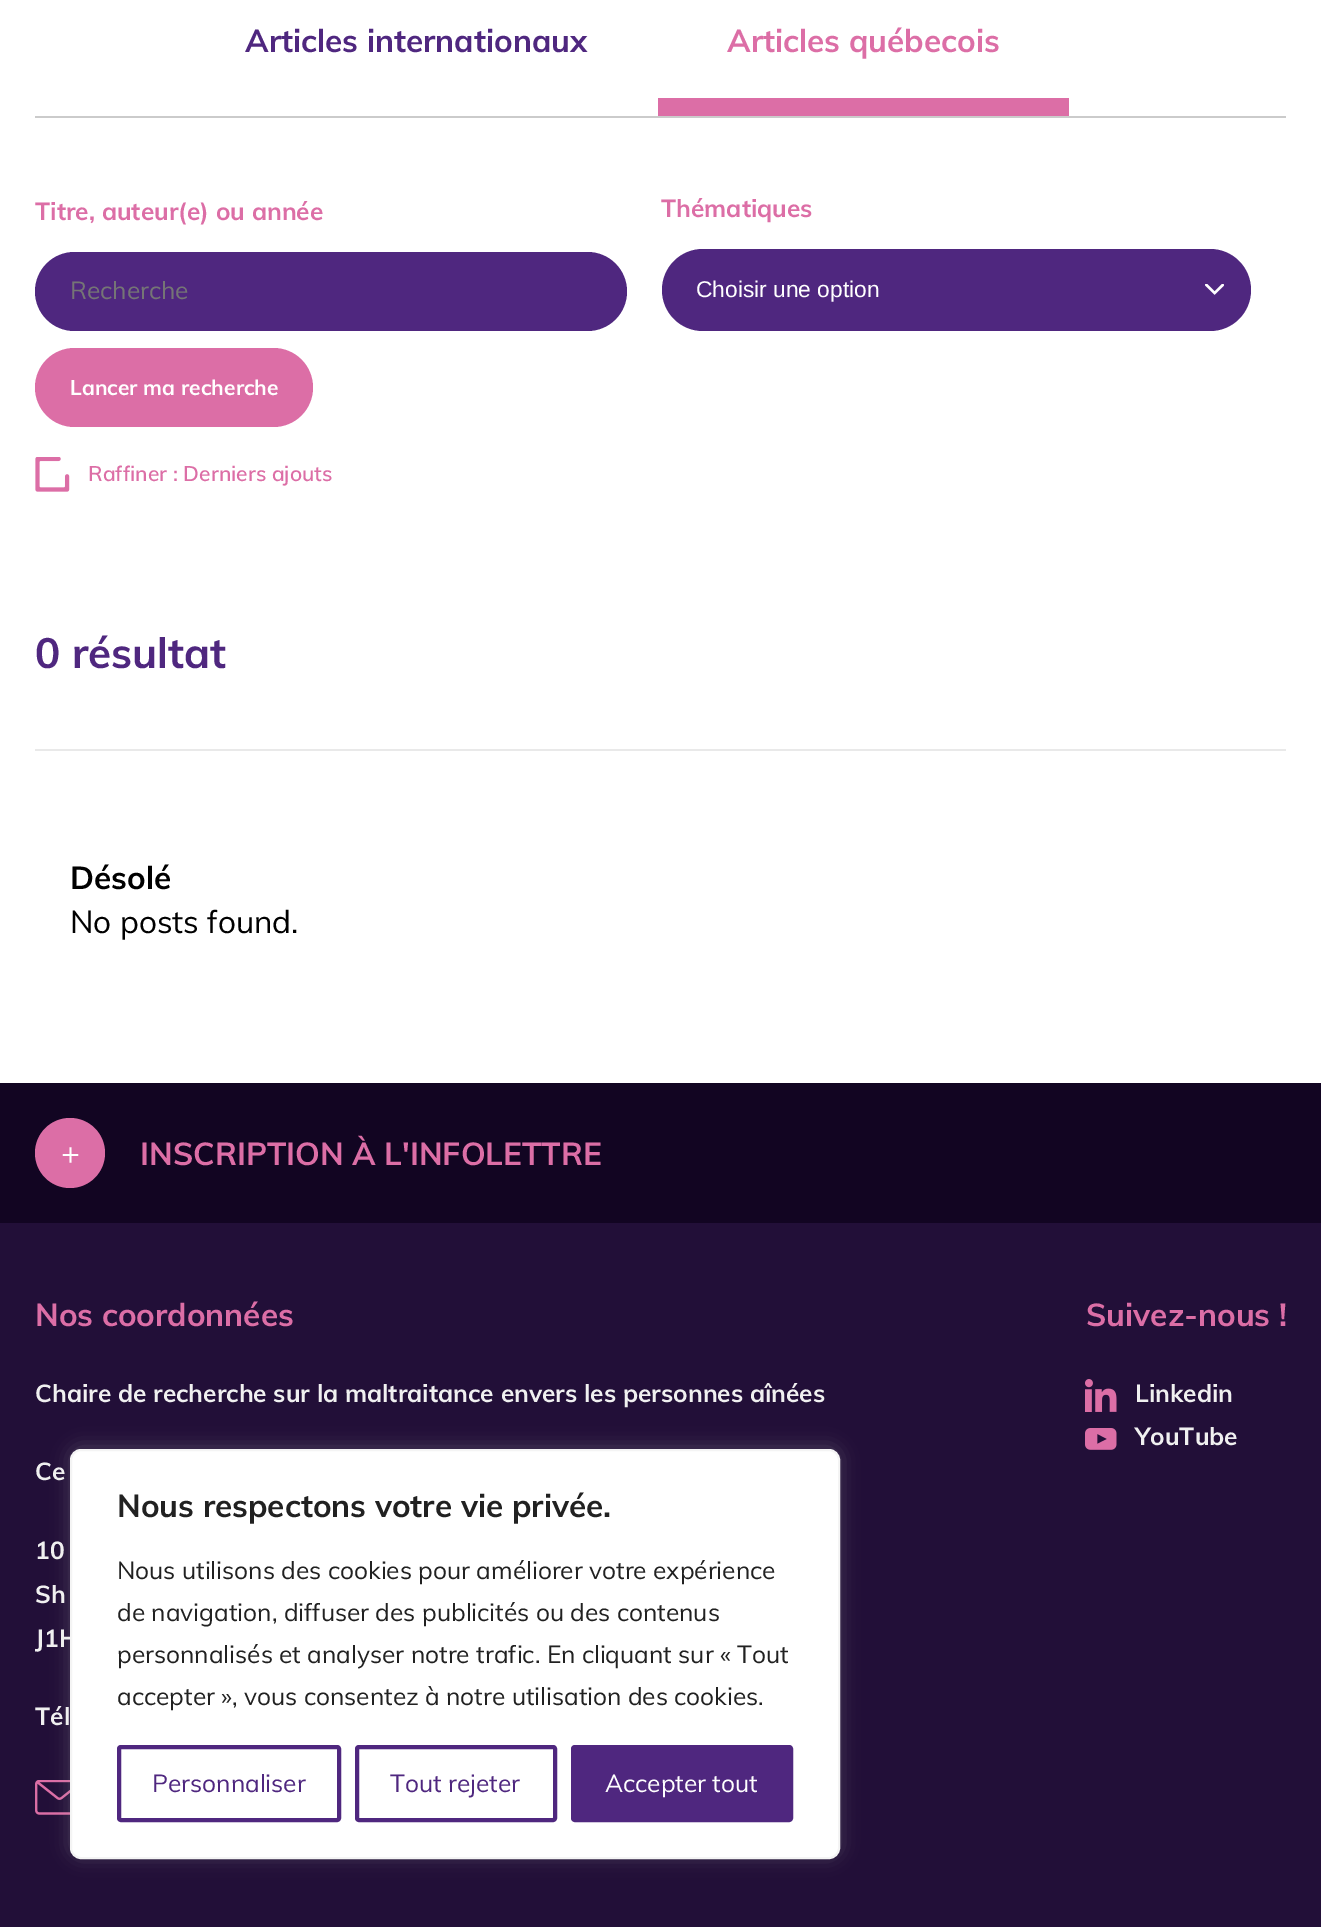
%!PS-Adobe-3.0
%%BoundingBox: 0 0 1321 1927
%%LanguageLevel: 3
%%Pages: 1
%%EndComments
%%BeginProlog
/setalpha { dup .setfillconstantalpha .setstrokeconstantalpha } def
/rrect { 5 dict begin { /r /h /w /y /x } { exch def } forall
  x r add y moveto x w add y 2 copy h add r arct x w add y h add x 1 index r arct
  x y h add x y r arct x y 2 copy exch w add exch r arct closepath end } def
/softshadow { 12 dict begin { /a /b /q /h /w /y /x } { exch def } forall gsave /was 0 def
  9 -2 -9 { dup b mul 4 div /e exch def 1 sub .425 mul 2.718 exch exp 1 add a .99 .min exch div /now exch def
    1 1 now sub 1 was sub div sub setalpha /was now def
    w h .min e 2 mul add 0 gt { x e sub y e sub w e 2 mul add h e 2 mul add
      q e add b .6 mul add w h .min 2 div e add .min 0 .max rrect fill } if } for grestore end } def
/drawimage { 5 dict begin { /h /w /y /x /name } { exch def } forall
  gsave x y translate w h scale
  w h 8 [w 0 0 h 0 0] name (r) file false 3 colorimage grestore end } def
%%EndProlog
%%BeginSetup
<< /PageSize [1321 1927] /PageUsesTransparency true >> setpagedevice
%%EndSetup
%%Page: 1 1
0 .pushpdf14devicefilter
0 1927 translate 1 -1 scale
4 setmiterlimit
1 setgray
0 0 1321 1927 rectfill
0.796 setgray
35 116 1251 2 rectfill
0.863 0.431 0.651 setrgbcolor
658 98 411 18 rectfill
0.31 0.153 0.498 setrgbcolor
35 252 592 79 39.5 rrect fill
662 249 589 82 41 rrect fill
(images/1.raw) 1205 284 19 11 drawimage
0.863 0.431 0.651 setrgbcolor
35 348 278 79 39.5 rrect fill
(images/2.raw) 35 457 35 35 drawimage
0.914 setgray
35 749 1251 2 rectfill
0.071 0.02 0.133 setrgbcolor
0 1083 1321 140 rectfill
0.863 0.431 0.651 setrgbcolor
newpath 70 1153 35 0 360 arc closepath fill
0.133 0.059 0.22 setrgbcolor
0 1223 1321 704 rectfill
(images/3.raw) 35 1780 35 35 drawimage
(images/4.raw) 1085 1379 32 33 drawimage
(images/5.raw) 1085 1428 32 22 drawimage
0.675 0.671 0.671 setrgbcolor
70 1447 770 410 11 9 0.3 softshadow
/Muli-Bold [31.5 0 0 -31.5 0 0] selectfont
0.31 0.153 0.498 setrgbcolor
245 52 moveto (Articles internationaux) show
0.863 0.431 0.651 setrgbcolor
727 52 moveto (Articles québecois) show
/Muli-Bold [24.5 0 0 -24.5 0 0] selectfont
35 220 moveto (Titre, auteur\(e\) ou année) show
/Muli-Regular [24.5 0 0 -24.5 0 0] selectfont
0.459 setgray
70 299 moveto (Recherche) show
/Muli-Bold [24.5 0 0 -24.5 0 0] selectfont
0.863 0.431 0.651 setrgbcolor
661 217 moveto (Thématiques) show
gsave
697 277 227 26 rectclip
/LiberationSans-Regular [22.75 0 0 -22.75 0 0] selectfont
1 setgray
696 297 moveto (Choisir une option) show
grestore
/Muli-Bold [21 0 0 -21 0 0] selectfont
1 setgray
70 395 moveto (Lancer ma recherche) show
/Muli-SemiBold [21 0 0 -21 0 0] selectfont
0.863 0.431 0.651 setrgbcolor
88 481 moveto (Raffiner : Derniers ajouts) show
/Muli-Bold [42 0 0 -42 0 0] selectfont
0.31 0.153 0.498 setrgbcolor
35 668 moveto (0 résultat) show
/Muli-Bold [31.5 0 0 -31.5 0 0] selectfont
0 setgray
70 889 moveto (Désolé) show
/Muli-Regular [31.5 0 0 -31.5 0 0] selectfont
70 933 moveto (No posts found.) show
1 setgray
61 1164 moveto (+) show
/Muli-Bold [31.5 0 0 -31.5 0 0] selectfont
0.863 0.431 0.651 setrgbcolor
140 1165 moveto (INSCRIPTION À L'INFOLETTRE) show
35 1326 moveto (Nos coordonnées) show
/Muli-Bold [24.5 0 0 -24.5 0 0] selectfont
0.941 setgray
35 1402 moveto (Chaire de recherche sur la maltraitance envers les personnes aînées) show
35 1480 moveto (Ce) show
35 1559 moveto (10) show
35 1603 moveto (Sh) show
35 1647 moveto (J1H) show
35 1725 moveto (Tél) show
/Muli-Bold [31.5 0 0 -31.5 0 0] selectfont
0.863 0.431 0.651 setrgbcolor
1086 1326 moveto (Suivez-nous !) show
/Muli-Bold [24.5 0 0 -24.5 0 0] selectfont
0.941 setgray
1135 1402 moveto (Linkedin) show
1135 1445 moveto (YouTube) show
1 setgray
71 1450 768 408 10 rrect gsave fill grestore
0.957 setgray
2 setlinewidth
stroke
/Muli-Bold [31.5 0 0 -31.5 0 0] selectfont
0.129 setgray
117 1517 moveto (Nous respectons votre vie privée.) show
/Muli-Regular [24.5 0 0 -24.5 0 0] selectfont
117 1579 moveto (Nous utilisons des cookies pour améliorer votre expérience) show
117 1621 moveto (de navigation, diffuser des publicités ou des contenus) show
117 1663 moveto (personnalisés et analyser notre trafic. En cliquant sur « Tout) show
117 1705 moveto (accepter », vous consentez à notre utilisation des cookies.) show
0.31 0.153 0.498 setrgbcolor
4 setlinewidth
119 1747 220 73 2 rrect stroke
152 1792 moveto (Personnaliser) show
357 1747 198 73 2 rrect stroke
390 1792 moveto (Tout rejeter) show
573 1747 218 73 2 rrect gsave fill grestore
stroke
1 setgray
605 1792 moveto (Accepter tout) show
.poppdf14devicefilter showpage
%%EOF
